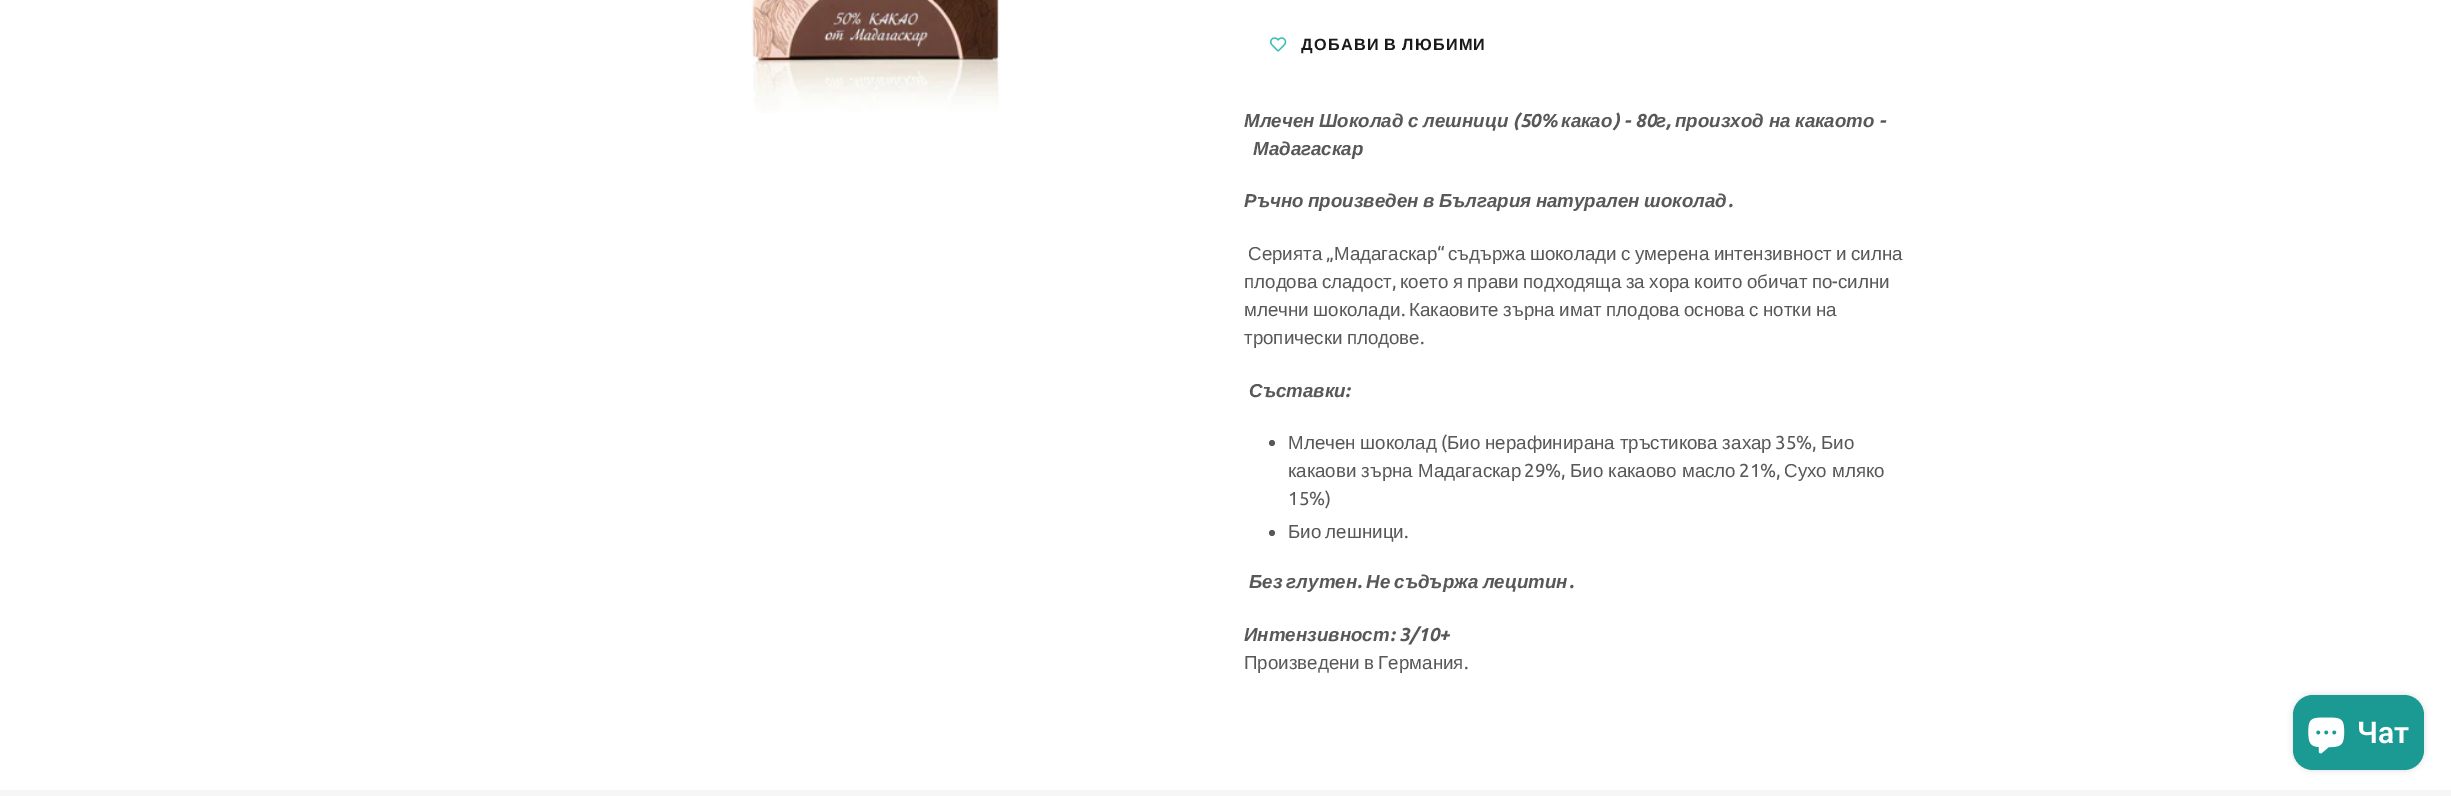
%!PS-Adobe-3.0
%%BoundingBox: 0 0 2451 796
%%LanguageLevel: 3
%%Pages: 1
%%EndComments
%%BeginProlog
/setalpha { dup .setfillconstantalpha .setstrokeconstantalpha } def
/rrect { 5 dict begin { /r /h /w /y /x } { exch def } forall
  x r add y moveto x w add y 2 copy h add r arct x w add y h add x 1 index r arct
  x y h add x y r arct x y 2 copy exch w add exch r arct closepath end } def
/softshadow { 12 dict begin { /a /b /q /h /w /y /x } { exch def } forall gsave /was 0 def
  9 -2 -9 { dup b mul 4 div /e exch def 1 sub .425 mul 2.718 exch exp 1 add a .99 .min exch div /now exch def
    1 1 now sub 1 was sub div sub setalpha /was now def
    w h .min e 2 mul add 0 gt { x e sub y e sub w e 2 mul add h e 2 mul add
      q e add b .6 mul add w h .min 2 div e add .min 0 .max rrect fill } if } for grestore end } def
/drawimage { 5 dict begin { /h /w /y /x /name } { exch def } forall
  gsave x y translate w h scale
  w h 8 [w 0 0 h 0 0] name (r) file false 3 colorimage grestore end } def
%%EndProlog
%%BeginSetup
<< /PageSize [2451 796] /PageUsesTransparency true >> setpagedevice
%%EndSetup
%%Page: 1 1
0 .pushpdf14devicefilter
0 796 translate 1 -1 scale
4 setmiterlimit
1 setgray
0 0 2451 796 rectfill
(images/1.raw) 751 0 249 113 drawimage
(images/2.raw) 1270 37 17 15 drawimage
0.345 setgray
newpath 1272 443 3 0 360 arc closepath fill
newpath 1272 533 3 0 360 arc closepath fill
0.965 setgray
0 790 2451 6 rectfill
0 setgray
2293 695 131 75 20 3 0.15 softshadow
0.106 0.6 0.576 setrgbcolor
2293 695 131 75 20 rrect fill
(images/3.raw) 2308 717 37 37 drawimage
/LiberationSans-Bold [16.25 0 0 -16.25 0 0] selectfont
0.102 setgray
1301 50 moveto -1 0 32 1.25 0 (ДОБАВИ В ЛЮБИМИ) awidthshow
/LiberationSans-BoldItalic [18.75 0 0 -18.75 0 0] selectfont
0.345 setgray
1244 127 moveto (Млечен) show
1319 127 moveto (Шоколад) show
1408 127 moveto (с) show
1423 127 moveto (лешници) show
/Ubuntu-BoldItalic [18.75 0 0 -18.75 0 0] selectfont
1513 127 moveto (\(50%) show
/LiberationSans-BoldItalic [18.75 0 0 -18.75 0 0] selectfont
1561 127 moveto (какао) show
/Ubuntu-BoldItalic [18.75 0 0 -18.75 0 0] selectfont
1613 127 moveto (\) - 80) show
/LiberationSans-BoldItalic [18.75 0 0 -18.75 0 0] selectfont
1656 127 moveto (г) show
1675 127 moveto (произход) show
1769 127 moveto (на) show
1795 127 moveto (какаото) show
/Ubuntu-BoldItalic [18.75 0 0 -18.75 0 0] selectfont
1879 127 moveto (-) show
1666 127 moveto (,) show
/LiberationSans-BoldItalic [18.75 0 0 -18.75 0 0] selectfont
1253 155 moveto (Мадагаскар) show
1244 207 moveto -0.75 0 32 (Ръчно произведен в България натурален шоколад) widthshow
/Ubuntu-BoldItalic [18.75 0 0 -18.75 0 0] selectfont
1728 207 moveto (.) show
/LiberationSans-Regular [18.75 0 0 -18.75 0 0] selectfont
1248 260 moveto (Серията) show
/Ubuntu-Regular [18.75 0 0 -18.75 0 0] selectfont
1326 260 moveto („) show
/LiberationSans-Regular [18.75 0 0 -18.75 0 0] selectfont
1334 260 moveto (Мадагаскар) show
/Ubuntu-Regular [18.75 0 0 -18.75 0 0] selectfont
1437 260 moveto (“) show
/LiberationSans-Regular [18.75 0 0 -18.75 0 0] selectfont
1448 260 moveto -0.75 0 32 (съдържа шоколади с умерена интензивност и силна) widthshow
1244 288 moveto -0.75 0 32 (плодова сладост) widthshow
1400 288 moveto -0.75 0 32 (което я прави подходяща за хора които обичат по) widthshow
/Ubuntu-Regular [18.75 0 0 -18.75 0 0] selectfont
1832 288 moveto (-) show
/LiberationSans-Regular [18.75 0 0 -18.75 0 0] selectfont
1838 288 moveto (силни) show
/Ubuntu-Regular [18.75 0 0 -18.75 0 0] selectfont
1392 288 moveto (,) show
/LiberationSans-Regular [18.75 0 0 -18.75 0 0] selectfont
1244 316 moveto -0.75 0 32 (млечни шоколади) widthshow
/Ubuntu-Regular [18.75 0 0 -18.75 0 0] selectfont
1401 316 moveto (.) show
/LiberationSans-Regular [18.75 0 0 -18.75 0 0] selectfont
1409 316 moveto -0.75 0 32 (Какаовите зърна имат плодова основа с нотки на) widthshow
1244 344 moveto -1 0 32 (тропически плодове) widthshow
/Ubuntu-Regular [18.75 0 0 -18.75 0 0] selectfont
1420 344 moveto (.) show
/LiberationSans-BoldItalic [18.75 0 0 -18.75 0 0] selectfont
1249 397 moveto (Съставки) show
/Ubuntu-BoldItalic [18.75 0 0 -18.75 0 0] selectfont
1345 397 moveto (:) show
/LiberationSans-Regular [18.75 0 0 -18.75 0 0] selectfont
1288 449 moveto -0.5 0 32 (Млечен шоколад) widthshow
/Ubuntu-Regular [18.75 0 0 -18.75 0 0] selectfont
1441 449 moveto (\() show
/LiberationSans-Regular [18.75 0 0 -18.75 0 0] selectfont
1447 449 moveto -0.5 0 32 (Био нерафинирана тръстикова захар) widthshow
/Ubuntu-Regular [18.75 0 0 -18.75 0 0] selectfont
1775 449 moveto (35%,) show
/LiberationSans-Regular [18.75 0 0 -18.75 0 0] selectfont
1821 449 moveto (Био) show
1288 477 moveto (какаови зърна Мадагаскар) show
/Ubuntu-Regular [18.75 0 0 -18.75 0 0] selectfont
1524 477 moveto (29%,) show
/LiberationSans-Regular [18.75 0 0 -18.75 0 0] selectfont
1570 477 moveto (Био какаово масло) show
/Ubuntu-Regular [18.75 0 0 -18.75 0 0] selectfont
1739 477 moveto (21%,) show
/LiberationSans-Regular [18.75 0 0 -18.75 0 0] selectfont
1784 477 moveto (Сухо мляко) show
/Ubuntu-Regular [18.75 0 0 -18.75 0 0] selectfont
1288 505 moveto (15%\)) show
/LiberationSans-Regular [18.75 0 0 -18.75 0 0] selectfont
1288 538 moveto -1 0 32 (Био лешници) widthshow
/Ubuntu-Regular [18.75 0 0 -18.75 0 0] selectfont
1404 538 moveto (.) show
/LiberationSans-BoldItalic [18.75 0 0 -18.75 0 0] selectfont
1249 588 moveto -1 0 32 (Без глутен) widthshow
/Ubuntu-BoldItalic [18.75 0 0 -18.75 0 0] selectfont
1357 588 moveto (.) show
/LiberationSans-BoldItalic [18.75 0 0 -18.75 0 0] selectfont
1366 588 moveto -1 0 32 (Не съдържа лецитин) widthshow
/Ubuntu-BoldItalic [18.75 0 0 -18.75 0 0] selectfont
1569 588 moveto (.) show
/LiberationSans-BoldItalic [18.75 0 0 -18.75 0 0] selectfont
1244 641 moveto (Интензивност) show
/Ubuntu-BoldItalic [18.75 0 0 -18.75 0 0] selectfont
1390 641 moveto (: 3/10+) show
/LiberationSans-Regular [18.75 0 0 -18.75 0 0] selectfont
1244 669 moveto -1 0 32 (Произведени в Германия) widthshow
/Ubuntu-Regular [18.75 0 0 -18.75 0 0] selectfont
1464 669 moveto (.) show
/Roboto-SemiBold [30 0 0 -30 0 0] selectfont
1 setgray
2357 743 moveto (Чат) show
.poppdf14devicefilter showpage
%%EOF
